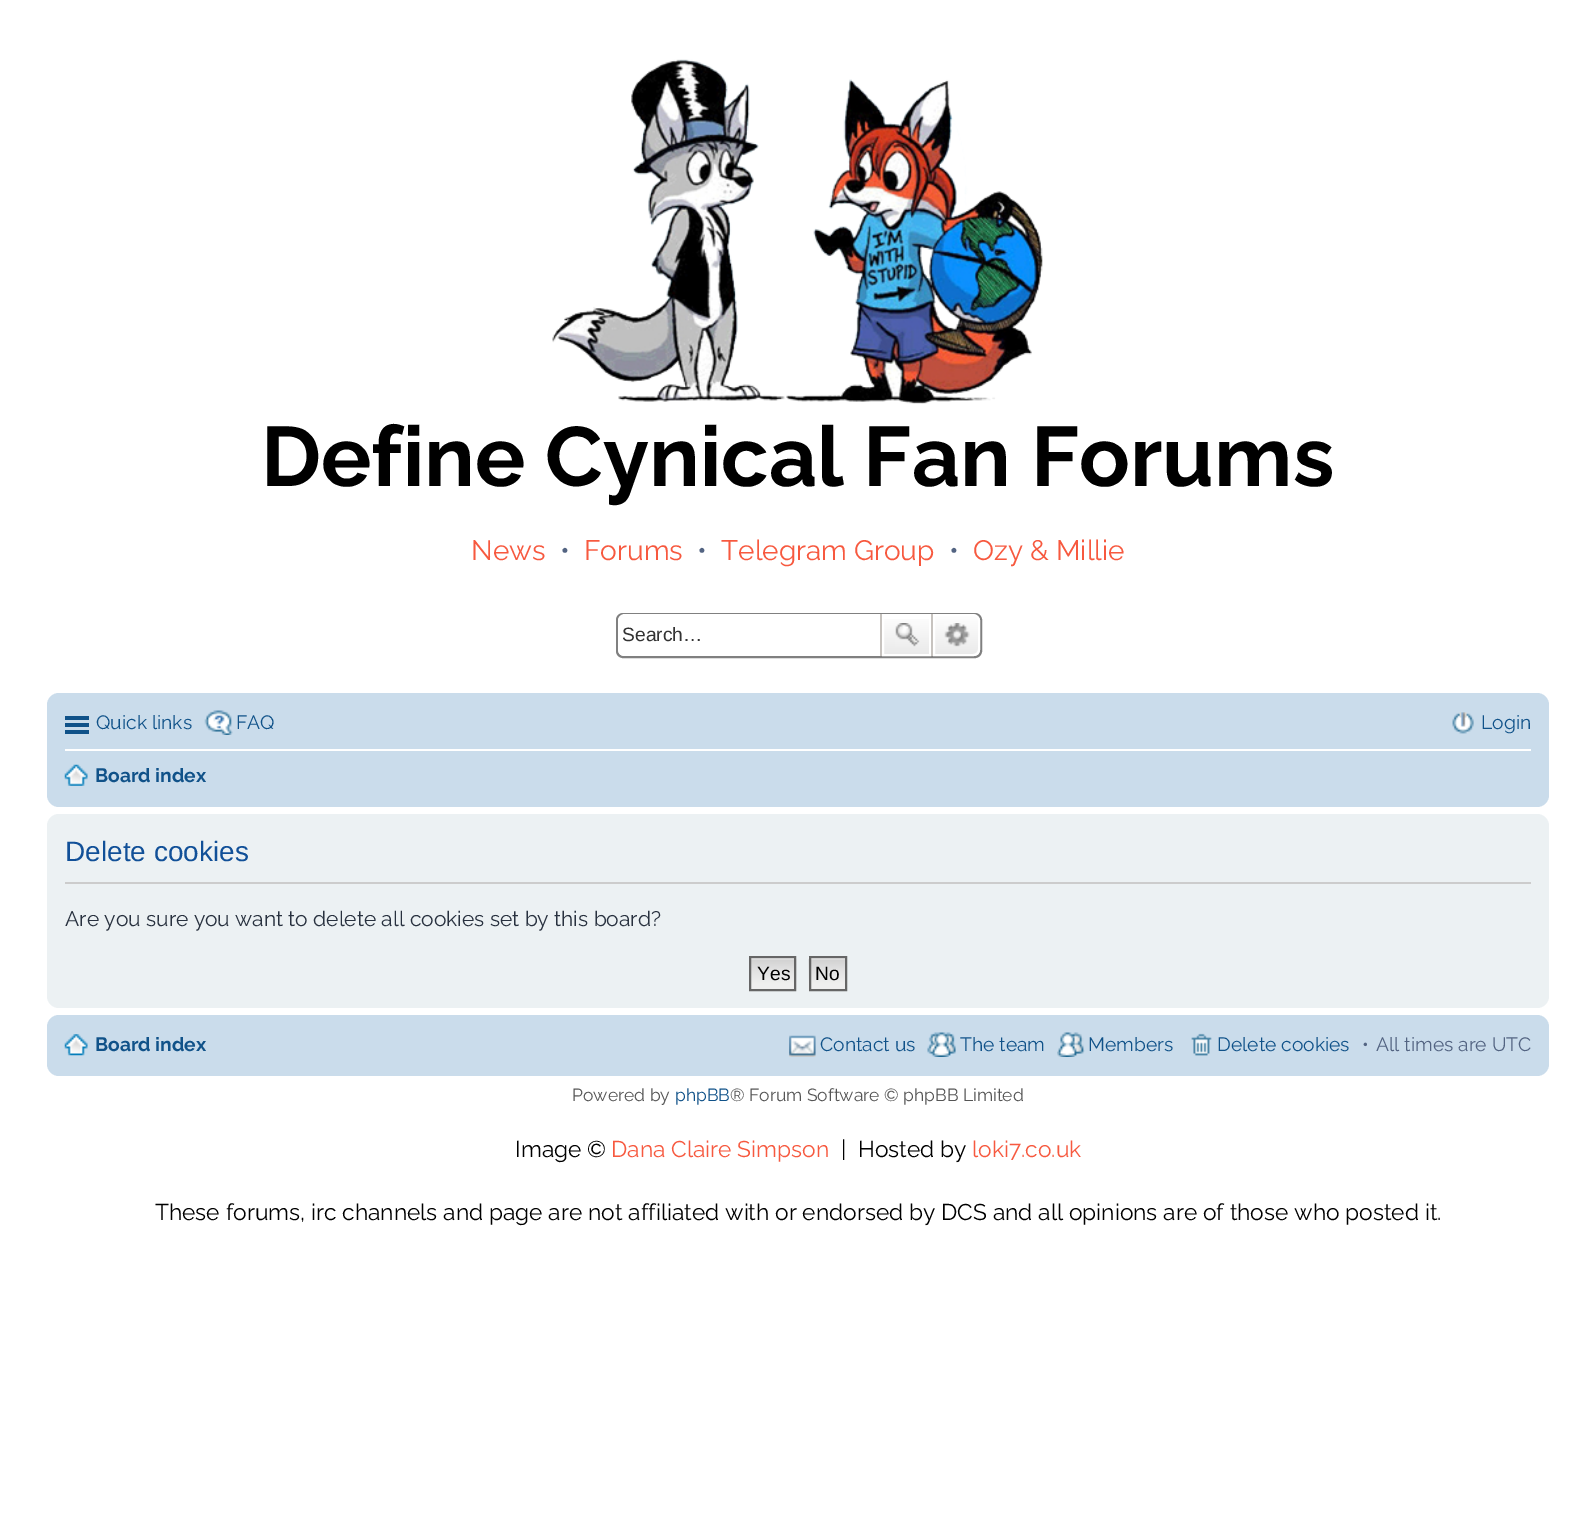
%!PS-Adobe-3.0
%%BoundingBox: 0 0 1596 1525
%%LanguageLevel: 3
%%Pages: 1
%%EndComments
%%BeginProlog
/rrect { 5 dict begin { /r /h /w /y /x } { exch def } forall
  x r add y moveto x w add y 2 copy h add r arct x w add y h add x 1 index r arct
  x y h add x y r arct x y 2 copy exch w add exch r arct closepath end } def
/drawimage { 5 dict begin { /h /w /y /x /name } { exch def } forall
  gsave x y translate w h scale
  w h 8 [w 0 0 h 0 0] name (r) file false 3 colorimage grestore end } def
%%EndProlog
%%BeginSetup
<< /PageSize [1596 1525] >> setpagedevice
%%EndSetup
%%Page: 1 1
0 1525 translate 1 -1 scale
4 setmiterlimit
1 setgray
0 0 1596 1525 rectfill
(images/1.raw) 552 59 491 345 drawimage
0.502 setgray
2 setlinewidth
617 614 364 43 6 rrect stroke
1 setgray
newpath 625 614 moveto 880 614 lineto 880 656 lineto 625 656 lineto 621 656 618 653 618 649 curveto 618 621 lineto 618 617 621 614 625 614 curveto closepath fill
gsave newpath 884 619 moveto 929 619 lineto 929 654 lineto 884 654 lineto closepath clip newpath
<< /ShadingType 2 /ColorSpace /DeviceRGB /Coords [907 614 907 656] /Extend [true true] /Function << /FunctionType 2 /Domain [0 1] /C0 [1 1 1] /C1 [0.914 0.914 0.914] /N 1 >> >> shfill grestore
883 615 47 40 rectstroke
0.78 0.765 0.749 setrgbcolor
931 614 2 42 rectfill
880 614 2 42 rectfill
(images/2.raw) 895 623 25 24 drawimage
gsave newpath 934 615 moveto 973 615 lineto 976.5 615 979 617.5 979 621 curveto 979 649 lineto 979 652.5 976.5 655 973 655 curveto 934 655 lineto closepath clip newpath
<< /ShadingType 2 /ColorSpace /DeviceRGB /Coords [956 614 956 656] /Extend [true true] /Function << /FunctionType 2 /Domain [0 1] /C0 [1 1 1] /C1 [0.914 0.914 0.914] /N 1 >> >> shfill grestore
1 setgray
newpath 934 615 moveto 973 615 lineto 976.5 615 979 617.5 979 621 curveto 979 649 lineto 979 652.5 976.5 655 973 655 curveto 934 655 lineto closepath stroke
(images/3.raw) 944 623 26 24 drawimage
0.792 0.863 0.922 setrgbcolor
47 693 1502 114 12 rrect fill
0.063 0.322 0.537 setrgbcolor
65 716 24 4 rectfill
65 723 24 4 rectfill
65 730 24 4 rectfill
(images/4.raw) 204 710 29 25 drawimage
(images/5.raw) 1452 712 22 22 drawimage
1 setgray
65 749 1466 2 rectfill
(images/6.raw) 64 764 24 22 drawimage
0.925 0.945 0.953 setrgbcolor
47 814 1502 194 12 rrect fill
0.8 setgray
65 882 1466 2 rectfill
(images/7.raw) 751 958 46 33 drawimage
0.4 setgray
750 957 45 33 rectstroke
(images/8.raw) 808 957 37 34 drawimage
810 957 36 33 rectstroke
0.792 0.863 0.922 setrgbcolor
47 1015 1502 61 12 rrect fill
(images/9.raw) 64 1034 24 22 drawimage
(images/10.raw) 789 1035 27 22 drawimage
(images/11.raw) 927 1032 29 25 drawimage
(images/12.raw) 1057 1032 28 25 drawimage
(images/13.raw) 1191 1033 21 23 drawimage
/Raleway-Bold [84 0 0 -84 0 0] selectfont
0 setgray
261 486 moveto (Define Cynical Fan Forums) show
/Raleway-Regular [28 0 0 -28 0 0] selectfont
0.969 0.349 0.247 setrgbcolor
471 560 moveto (News) show
0.325 0.392 0.51 setrgbcolor
560 560 moveto (•) show
0.969 0.349 0.247 setrgbcolor
584 560 moveto (Forums) show
0.325 0.392 0.51 setrgbcolor
697 560 moveto (•) show
0.969 0.349 0.247 setrgbcolor
721 560 moveto (Telegram Group) show
0.325 0.392 0.51 setrgbcolor
949 560 moveto (•) show
0.969 0.349 0.247 setrgbcolor
973 560 moveto (Ozy & Millie) show
/LiberationSans-Regular [19.25 0 0 -19.25 0 0] selectfont
0.2 setgray
622 641 moveto (Search…) show
/Raleway-Regular [19.25 0 0 -19.25 0 0] selectfont
0.063 0.322 0.537 setrgbcolor
96 729 moveto (Quick links) show
236 729 moveto (FAQ) show
1481 729 moveto (Login) show
/Raleway-Bold [19.25 0 0 -19.25 0 0] selectfont
95 782 moveto (Board index) show
/LiberationSans-Regular [28 0 0 -28 0 0] selectfont
0.067 0.314 0.596 setrgbcolor
65 861 moveto (Delete cookies) show
/Raleway-Regular [21 0 0 -21 0 0] selectfont
0.157 0.192 0.247 setrgbcolor
65 926 moveto (Are you sure you want to delete all cookies set by this board?) show
/LiberationSans-Regular [19.25 0 0 -19.25 0 0] selectfont
0 setgray
757 980 moveto (Yes) show
815 980 moveto (No) show
/Raleway-Bold [19.25 0 0 -19.25 0 0] selectfont
0.063 0.322 0.537 setrgbcolor
95 1051 moveto (Board index) show
/Raleway-Regular [19.25 0 0 -19.25 0 0] selectfont
820 1051 moveto (Contact us) show
960 1051 moveto (The team) show
1088 1051 moveto (Members) show
1217 1051 moveto (Delete cookies) show
0.325 0.392 0.51 setrgbcolor
1362 1051 moveto (•) show
1376 1051 moveto (All times are UTC) show
/Raleway-Regular [17.5 0 0 -17.5 0 0] selectfont
0.333 setgray
572 1101 moveto (Powered by) show
0.063 0.322 0.537 setrgbcolor
675 1101 moveto (phpBB) show
0.333 setgray
730 1101 moveto (® Forum Software © phpBB Limited) show
/Raleway-Regular [22.75 0 0 -22.75 0 0] selectfont
0 setgray
515 1157 moveto (Image ©) show
0.969 0.349 0.247 setrgbcolor
611 1157 moveto (Dana Claire Simpson) show
0 setgray
841 1157 moveto (|  Hosted by) show
0.969 0.349 0.247 setrgbcolor
972 1157 moveto (loki7.co.uk) show
0 setgray
155 1220 moveto (These forums, irc channels and page are not affiliated with or endorsed by DCS and all opinions are of those who posted it.) show
showpage
%%EOF
